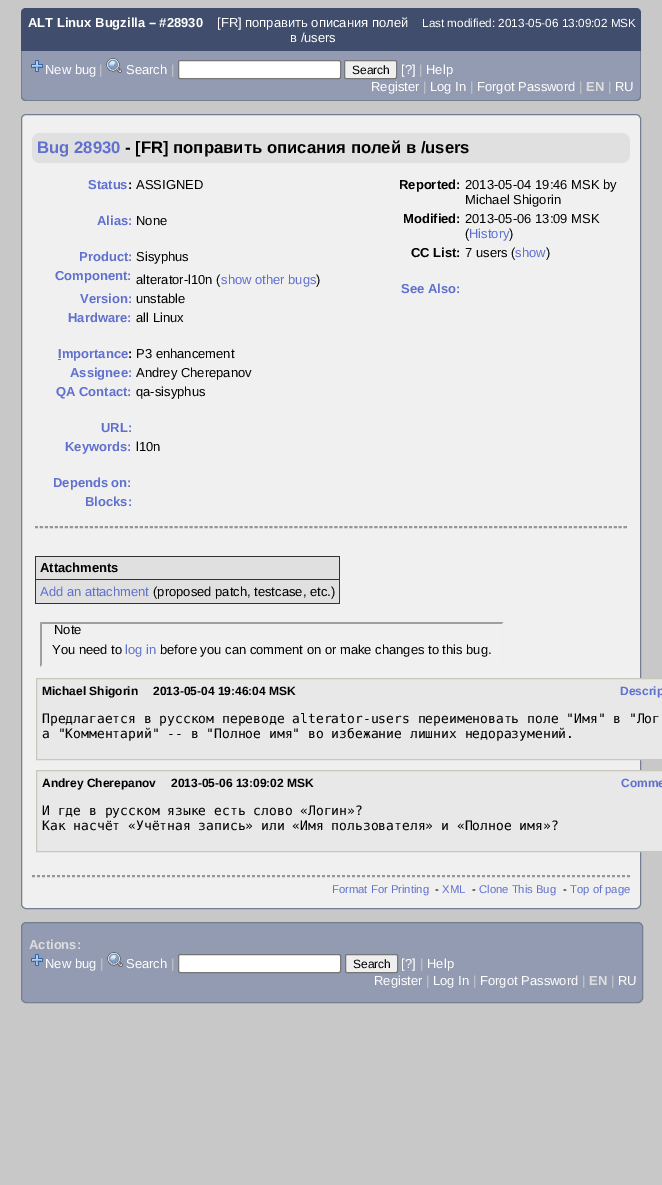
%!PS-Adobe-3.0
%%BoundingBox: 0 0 662 1185
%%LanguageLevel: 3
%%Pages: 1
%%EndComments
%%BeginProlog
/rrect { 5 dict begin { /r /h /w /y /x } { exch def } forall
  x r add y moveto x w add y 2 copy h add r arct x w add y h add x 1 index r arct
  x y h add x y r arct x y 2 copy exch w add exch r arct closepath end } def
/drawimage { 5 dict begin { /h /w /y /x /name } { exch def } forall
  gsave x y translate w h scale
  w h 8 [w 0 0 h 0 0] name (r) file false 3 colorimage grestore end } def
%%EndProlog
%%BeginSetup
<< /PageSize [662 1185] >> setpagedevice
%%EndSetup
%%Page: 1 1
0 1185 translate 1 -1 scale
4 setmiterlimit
0.784 setgray
0 0 662 1185 rectfill
0.251 0.302 0.424 setrgbcolor
newpath 26 8 moveto 636 8 lineto 639 8 641 10 641 13 curveto 641 51 lineto 21 51 lineto 21 13 lineto 21 10 23 8 26 8 curveto closepath fill
0.573 0.608 0.694 setrgbcolor
newpath 21 51 moveto 641 51 lineto 641 96 lineto 641 99 639 101 636 101 curveto 26 101 lineto 23 101 21 99 21 96 curveto closepath fill
0.455 0.494 0.576 setrgbcolor
newpath 21 51 moveto 641 51 lineto 641 96 lineto 641 99 639 101 636 101 curveto 26 101 lineto 23 101 21 99 21 96 curveto closepath 22 51 moveto 640 51 lineto 640 96 lineto 640 98 638 100 636 100 curveto 26 100 lineto 24 100 22 98 22 96 curveto closepath eofill
(images/1.raw) 31 60 12 12 drawimage
(images/2.raw) 106 58 16 15 drawimage
1 setgray
178.5 60.5 162 18 1.5 rrect gsave fill grestore
0.463 setgray
stroke
0.937 setgray
344.5 60.5 52 18 1.5 rrect gsave fill grestore
0.463 setgray
stroke
0.941 setgray
21.5 114.5 619 794 4.5 rrect gsave fill grestore
0.455 0.494 0.576 setrgbcolor
stroke
0.878 setgray
32 133 598 30 8 rrect fill
0.376 0.439 0.812 setrgbcolor
58 359 3 1 rectfill
0.588 setgray
[3 1.99] 0 setdash
newpath 35 526.5 moveto 627 526.5 lineto stroke
626 526 1 2 rectfill
newpath 35 527.5 moveto 627 527.5 lineto stroke
0.2 setgray
35 556 305 1 rectfill
339 556 1 48 rectfill
35 603 305 1 rectfill
35 556 1 48 rectfill
0.878 setgray
36 557 303 22 rectfill
36 580 303 23 rectfill
0.2 setgray
35 579 305 1 rectfill
0.624 setgray
newpath 40 622 moveto 504 622 lineto 502 624 lineto 42 624 lineto closepath fill
0.937 setgray
newpath 504 622 moveto 504 667 lineto 502 665 lineto 502 624 lineto closepath fill
0.624 setgray
newpath 40 667 moveto 40 622 lineto 42 624 lineto 42 665 lineto closepath fill
0.91 setgray
newpath 36.5 678.5 moveto 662.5 678.5 lineto 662.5 759.5 lineto 36.5 759.5 lineto closepath gsave fill grestore
0.784 0.784 0.729 setrgbcolor
[] 0 setdash
stroke
0.91 setgray
newpath 36.5 770.5 moveto 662.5 770.5 lineto 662.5 851.5 lineto 36.5 851.5 lineto closepath gsave fill grestore
0.784 0.784 0.729 setrgbcolor
stroke
0.588 setgray
[3 2] 0 setdash
newpath 32 875.5 moveto 630 875.5 lineto stroke
629 875 1 2 rectfill
newpath 32 876.5 moveto 630 876.5 lineto stroke
0.573 0.608 0.694 setrgbcolor
21.5 922.5 621 80 4.5 rrect gsave fill grestore
0.455 0.494 0.576 setrgbcolor
[] 0 setdash
stroke
(images/1.raw) 31 954 12 12 drawimage
(images/2.raw) 107 952 16 15 drawimage
1 setgray
178.5 954.5 162 18 1.5 rrect gsave fill grestore
0.463 setgray
stroke
0.937 setgray
345.5 954.5 52 18 1.5 rrect gsave fill grestore
0.463 setgray
stroke
/LiberationSans-Bold [13 0 0 -13 0 0] selectfont
1 setgray
28 27 moveto (ALT Linux Bugzilla – #28930) show
/LiberationSans-Regular [13 0 0 -13 0 0] selectfont
217 27 moveto ([FR] поправить описания полей) show
290 42 moveto (в /users) show
/LiberationSans-Regular [11.75 0 0 -11.75 0 0] selectfont
422 27 moveto (Last modified: 2013-05-06 13:09:02 MSK) show
/LiberationSans-Regular [13 0 0 -13 0 0] selectfont
45 74 moveto (New bug) show
0.8 setgray
99 74 moveto (|) show
1 setgray
126 74 moveto (Search) show
0.8 setgray
171 74 moveto (|) show
/LiberationSans-Regular [12 0 0 -12 0 0] selectfont
0 setgray
352 74 moveto (Search) show
/LiberationSans-Regular [13 0 0 -13 0 0] selectfont
1 setgray
401 74 moveto ([?]) show
0.8 setgray
419 74 moveto (|) show
1 setgray
426 74 moveto (Help) show
371 91 moveto (Register) show
0.8 setgray
423 91 moveto (|) show
1 setgray
430 91 moveto (Log In) show
0.8 setgray
470 91 moveto (|) show
1 setgray
477 91 moveto (Forgot Password) show
0.8 setgray
579 91 moveto (|) show
/LiberationSans-Bold [13 0 0 -13 0 0] selectfont
0.867 setgray
586 91 moveto (EN) show
/LiberationSans-Regular [13 0 0 -13 0 0] selectfont
0.8 setgray
608 91 moveto (|) show
1 setgray
615 91 moveto (RU) show
/LiberationSans-Bold [16.7 0 0 -16.7 0 0] selectfont
0.376 0.439 0.812 setrgbcolor
37 153 moveto (Bug 28930) show
0 setgray
125 153 moveto (- [FR] поправить описания полей в /users) show
/LiberationSans-Bold [13 0 0 -13 0 0] selectfont
0.376 0.439 0.812 setrgbcolor
88 189 moveto (Status) show
0 setgray
128 189 moveto (:) show
/LiberationSans-Regular [13 0 0 -13 0 0] selectfont
136 189 moveto (ASSIGNED) show
/LiberationSans-Bold [13 0 0 -13 0 0] selectfont
0.376 0.439 0.812 setrgbcolor
97 225 moveto (Alias:) show
/LiberationSans-Regular [13 0 0 -13 0 0] selectfont
0 setgray
136 225 moveto (None) show
/LiberationSans-Bold [13 0 0 -13 0 0] selectfont
0.376 0.439 0.812 setrgbcolor
79 261 moveto (Product:) show
/LiberationSans-Regular [13 0 0 -13 0 0] selectfont
0 setgray
136 261 moveto (Sisyphus) show
/LiberationSans-Bold [13 0 0 -13 0 0] selectfont
0.376 0.439 0.812 setrgbcolor
55 280 moveto (Component:) show
/LiberationSans-Regular [13 0 0 -13 0 0] selectfont
0 setgray
136 284 moveto (alterator-l10n \() show
0.376 0.439 0.812 setrgbcolor
221 284 moveto (show other bugs) show
0 setgray
316 284 moveto (\)) show
/LiberationSans-Bold [13 0 0 -13 0 0] selectfont
0.376 0.439 0.812 setrgbcolor
80 303 moveto (Version:) show
/LiberationSans-Regular [13 0 0 -13 0 0] selectfont
0 setgray
136 303 moveto (unstable) show
/LiberationSans-Bold [13 0 0 -13 0 0] selectfont
0.376 0.439 0.812 setrgbcolor
68 322 moveto (Hardware:) show
/LiberationSans-Regular [13 0 0 -13 0 0] selectfont
0 setgray
136 322 moveto (all Linux) show
/LiberationSans-Bold [13 0 0 -13 0 0] selectfont
0.376 0.439 0.812 setrgbcolor
58 358 moveto (Importance) show
0 setgray
128 358 moveto (:) show
/LiberationSans-Regular [13 0 0 -13 0 0] selectfont
136 358 moveto (P3 enhancement) show
/LiberationSans-Bold [13 0 0 -13 0 0] selectfont
0.376 0.439 0.812 setrgbcolor
70 377 moveto (Assignee:) show
/LiberationSans-Regular [13 0 0 -13 0 0] selectfont
0 setgray
136 377 moveto (Andrey Cherepanov) show
/LiberationSans-Bold [13 0 0 -13 0 0] selectfont
0.376 0.439 0.812 setrgbcolor
56 396 moveto (QA Contact:) show
/LiberationSans-Regular [13 0 0 -13 0 0] selectfont
0 setgray
136 396 moveto (qa-sisyphus) show
/LiberationSans-Bold [13 0 0 -13 0 0] selectfont
0.376 0.439 0.812 setrgbcolor
101 432 moveto (URL:) show
65 451 moveto (Keywords:) show
/LiberationSans-Regular [13 0 0 -13 0 0] selectfont
0 setgray
136 451 moveto (l10n) show
/LiberationSans-Bold [13 0 0 -13 0 0] selectfont
0.376 0.439 0.812 setrgbcolor
53 487 moveto (Depends on:) show
85 506 moveto (Blocks:) show
0 setgray
399 189 moveto (Reported:) show
/LiberationSans-Regular [13 0 0 -13 0 0] selectfont
465 189 moveto (2013-05-04 19:46 MSK by) show
465 204 moveto (Michael Shigorin) show
/LiberationSans-Bold [13 0 0 -13 0 0] selectfont
403 223 moveto (Modified:) show
/LiberationSans-Regular [13 0 0 -13 0 0] selectfont
465 223 moveto (2013-05-06 13:09 MSK) show
465 238 moveto (\() show
0.376 0.439 0.812 setrgbcolor
469 238 moveto (History) show
0 setgray
509 238 moveto (\)) show
/LiberationSans-Bold [13 0 0 -13 0 0] selectfont
411 257 moveto (CC List:) show
/LiberationSans-Regular [13 0 0 -13 0 0] selectfont
465 257 moveto (7 users \() show
0.376 0.439 0.812 setrgbcolor
515 257 moveto (show) show
0 setgray
546 257 moveto (\)) show
/LiberationSans-Bold [13 0 0 -13 0 0] selectfont
0.376 0.439 0.812 setrgbcolor
401 293 moveto (See Also:) show
0 setgray
40 572 moveto (Attachments) show
/LiberationSans-Regular [13 0 0 -13 0 0] selectfont
0.376 0.439 0.812 setrgbcolor
40 596 moveto (Add an attachment) show
0 setgray
153 596 moveto (\(proposed patch, testcase, etc.\)) show
54 634 moveto (Note) show
52 654 moveto (You need to) show
0.376 0.439 0.812 setrgbcolor
125 654 moveto (log in) show
0 setgray
160 654 moveto (before you can comment on or make changes to this bug.) show
/LiberationSans-Bold [12 0 0 -12 0 0] selectfont
42 695 moveto (Michael Shigorin) show
153 695 moveto (2013-05-04 19:46:04 MSK) show
0.376 0.439 0.812 setrgbcolor
620 695 moveto (Descrip) show
/DejaVuSansMono-Regular [13 0 0 -13 0 0] selectfont
0 setgray
42 723 moveto (Предлагается в русском переводе alterator-users переименовать поле "Имя" в "Лог) show
42 738 moveto (а "Комментарий" -- в "Полное имя" во избежание лишних недоразумений.) show
/LiberationSans-Bold [12 0 0 -12 0 0] selectfont
42 787 moveto (Andrey Cherepanov) show
171 787 moveto (2013-05-06 13:09:02 MSK) show
0.376 0.439 0.812 setrgbcolor
621 787 moveto (Comme) show
/DejaVuSansMono-Regular [13 0 0 -13 0 0] selectfont
0 setgray
42 815 moveto (И где в русском языке есть слово «Логин»?) show
42 830 moveto (Как насчёт «Учётная запись» или «Имя пользователя» и «Полное имя»?) show
/LiberationSans-Regular [11.25 0 0 -11.25 0 0] selectfont
0.376 0.439 0.812 setrgbcolor
332 893 moveto (Format For Printing) show
0 setgray
435 893 moveto (-) show
0.376 0.439 0.812 setrgbcolor
442 893 moveto (XML) show
0 setgray
472 893 moveto (-) show
0.376 0.439 0.812 setrgbcolor
479 893 moveto (Clone This Bug) show
0 setgray
563 893 moveto (-) show
0.376 0.439 0.812 setrgbcolor
570 893 moveto (Top of page) show
/LiberationSans-Bold [13 0 0 -13 0 0] selectfont
0.867 setgray
29 949 moveto (Actions:) show
/LiberationSans-Regular [13 0 0 -13 0 0] selectfont
1 setgray
45 968 moveto (New bug) show
0.8 setgray
100 968 moveto (|) show
1 setgray
126 968 moveto (Search) show
0.8 setgray
171 968 moveto (|) show
/LiberationSans-Regular [12 0 0 -12 0 0] selectfont
0 setgray
353 968 moveto (Search) show
/LiberationSans-Regular [13 0 0 -13 0 0] selectfont
1 setgray
401 968 moveto ([?]) show
0.8 setgray
420 968 moveto (|) show
1 setgray
427 968 moveto (Help) show
374 985 moveto (Register) show
0.8 setgray
426 985 moveto (|) show
1 setgray
433 985 moveto (Log In) show
0.8 setgray
473 985 moveto (|) show
1 setgray
480 985 moveto (Forgot Password) show
0.8 setgray
582 985 moveto (|) show
/LiberationSans-Bold [13 0 0 -13 0 0] selectfont
0.867 setgray
589 985 moveto (EN) show
/LiberationSans-Regular [13 0 0 -13 0 0] selectfont
0.8 setgray
611 985 moveto (|) show
1 setgray
618 985 moveto (RU) show
showpage
%%EOF
